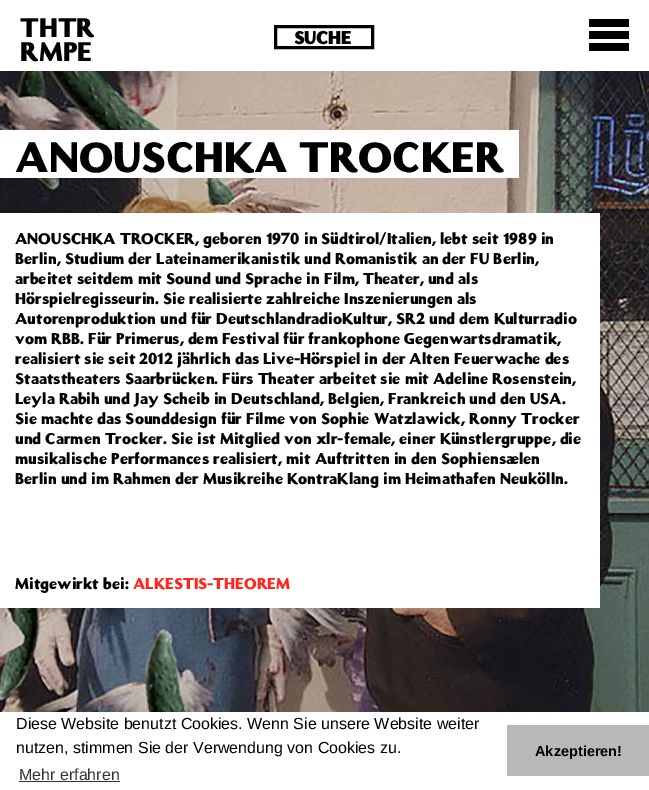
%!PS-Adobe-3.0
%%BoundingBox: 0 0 649 790
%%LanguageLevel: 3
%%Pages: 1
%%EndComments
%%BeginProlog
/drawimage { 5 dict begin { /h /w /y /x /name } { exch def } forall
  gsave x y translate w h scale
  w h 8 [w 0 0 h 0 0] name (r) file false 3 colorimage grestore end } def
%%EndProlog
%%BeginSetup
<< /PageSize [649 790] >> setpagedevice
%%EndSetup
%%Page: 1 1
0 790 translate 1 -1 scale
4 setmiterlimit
1 setgray
0 0 649 790 rectfill
0 setgray
3 setlinewidth
275.5 26.5 97 21 rectstroke
589 19 40 8 rectfill
589 31 40 8 rectfill
589 43 40 8 rectfill
(images/1.raw) 0 71 649 641 drawimage
1 setgray
0 130 519 48 rectfill
0 213 600 395 rectfill
0.2 setgray
19 781 101 1 rectfill
0.722 setgray
507 725 142 51 rectfill
/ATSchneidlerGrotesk-Regular [24 0 0 -24 0 0] selectfont
0 setgray
20 37 moveto (THTR) show
20 61 moveto (RMPE) show
/ATSchneidlerGrotesk-Bold [16 0 0 -16 0 0] selectfont
294 44 moveto (SUCHE) show
/ATSchneidlerGrotesk-Regular [38 0 0 -38 0 0] selectfont
15 172 moveto (ANOUSCHKA TROCKER) show
/ATSchneidlerGrotesk-Regular [14 0 0 -14 0 0] selectfont
15 244 moveto (ANOUSCHKA TROCKER, geboren 1970 in Südtirol/Italien, lebt seit 1989 in) show
15 264 moveto (Berlin, Studium der Lateinamerikanistik und Romanistik an der FU Berlin,) show
15 284 moveto (arbeitet seitdem mit Sound und Sprache in Film, Theater, und als) show
15 304 moveto (Hörspielregisseurin. Sie realisierte zahlreiche Inszenierungen als) show
15 324 moveto (Autorenproduktion und für DeutschlandradioKultur, SR2 und dem Kulturradio) show
15 344 moveto (vom RBB. Für Primerus, dem Festival für frankophone Gegenwartsdramatik,) show
15 364 moveto (realisiert sie seit 2012 jährlich das Live-Hörspiel in der Alten Feuerwache des) show
15 384 moveto (Staatstheaters Saarbrücken. Fürs Theater arbeitet sie mit Adeline Rosenstein,) show
15 404 moveto (Leyla Rabih und Jay Scheib in Deutschland, Belgien, Frankreich und den USA.) show
15 424 moveto (Sie machte das Sounddesign für Filme von Sophie Watzlawick, Ronny Trocker) show
15 444 moveto (und Carmen Trocker. Sie ist Mitglied von xlr-female, einer Künstlergruppe, die) show
15 464 moveto (musikalische Performances realisiert, mit Auftritten in den Sophiensælen) show
15 484 moveto (Berlin und im Rahmen der Musikreihe KontraKlang im Heimathafen Neukölln.) show
15 589 moveto (Mitgewirkt bei:) show
1 0.149 0.106 setrgbcolor
133 589 moveto (ALKESTIS-THEOREM) show
/LiberationSans-Regular [16 0 0 -16 0 0] selectfont
0 setgray
16 729 moveto (Diese Website benutzt Cookies. Wenn Sie unsere Website weiter) show
16 753 moveto (nutzen, stimmen Sie der Verwendung von Cookies zu.) show
0.2 setgray
19 780 moveto (Mehr erfahren) show
/LiberationSans-Bold [14.5 0 0 -14.5 0 0] selectfont
0 setgray
535 756 moveto (Akzeptieren!) show
showpage
%%EOF
